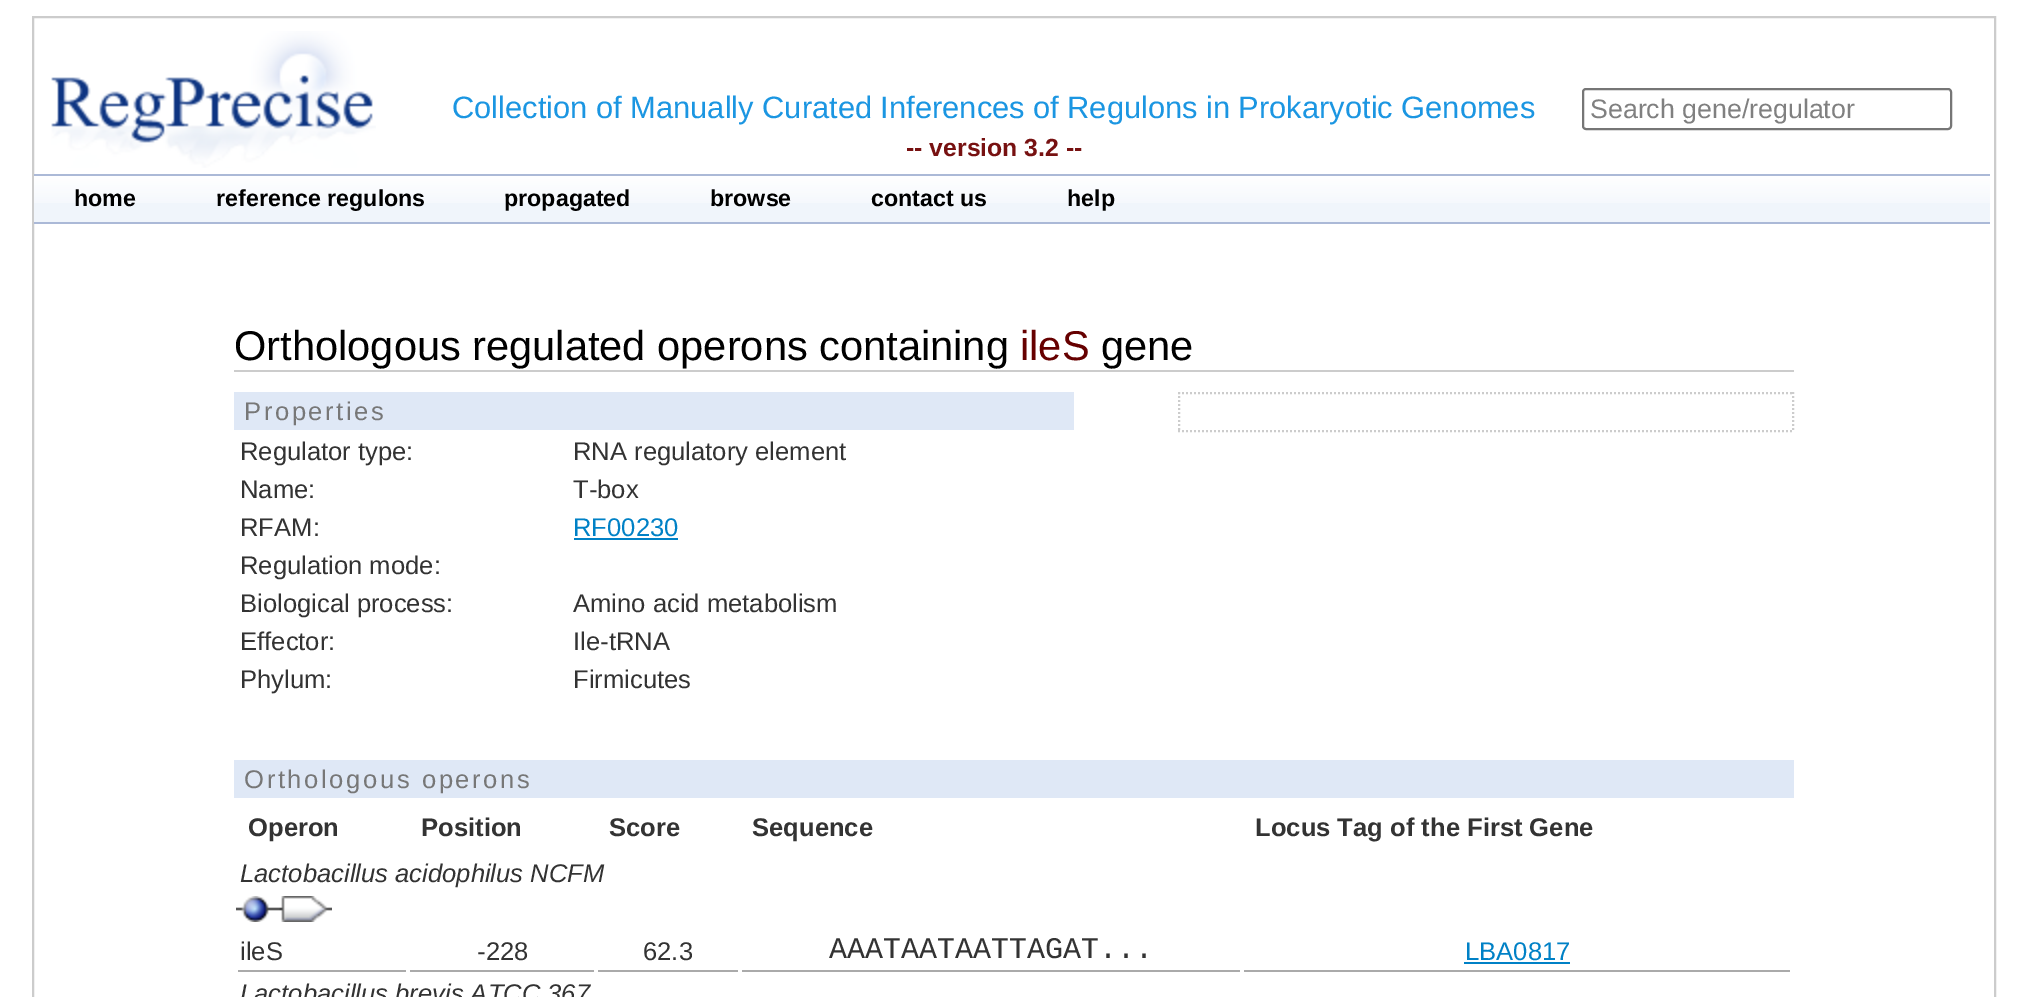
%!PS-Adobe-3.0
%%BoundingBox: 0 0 2027 997
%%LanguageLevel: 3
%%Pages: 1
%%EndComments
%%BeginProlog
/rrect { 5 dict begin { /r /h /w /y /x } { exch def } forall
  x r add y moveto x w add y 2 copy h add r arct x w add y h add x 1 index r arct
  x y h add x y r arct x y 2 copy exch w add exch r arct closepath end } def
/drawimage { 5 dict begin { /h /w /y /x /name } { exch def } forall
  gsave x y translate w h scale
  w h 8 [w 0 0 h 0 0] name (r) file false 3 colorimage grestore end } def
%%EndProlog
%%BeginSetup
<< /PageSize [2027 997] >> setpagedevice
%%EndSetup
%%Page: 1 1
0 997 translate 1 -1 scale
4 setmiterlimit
1 setgray
0 0 2027 997 rectfill
0.8 setgray
2 setlinewidth
33 17 1962 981 rectstroke
(images/1.raw) 51 31 325 137 drawimage
0.463 setgray
1583 89 368 40 3 rrect stroke
0.941 0.961 0.984 setrgbcolor
34 203 1956 19 rectfill
(images/2.raw) 34 176 1956 27 drawimage
0.671 0.725 0.843 setrgbcolor
34 174 1956 2 rectfill
34 222 1956 2 rectfill
0.8 setgray
234 370 1560 2 rectfill
0.875 0.91 0.965 setrgbcolor
234 392 840 38 rectfill
0 0.506 0.776 setrgbcolor
574 538 104 2 rectfill
0.8 setgray
[2 2] 0 setdash
newpath 1178 393 moveto 1794 393 lineto stroke
newpath 1793 392 moveto 1793 432 lineto stroke
newpath 1178 431 moveto 1794 431 lineto stroke
newpath 1179 392 moveto 1179 432 lineto stroke
0.875 0.91 0.965 setrgbcolor
234 760 1560 38 rectfill
(images/3.raw) 236 896 38 26 drawimage
(images/4.raw) 274 896 58 26 drawimage
0.667 setgray
238 970 168 2 rectfill
410 970 184 2 rectfill
598 970 140 2 rectfill
742 970 498 2 rectfill
1244 970 546 2 rectfill
0 0.506 0.776 setrgbcolor
1464 962 106 2 rectfill
/LiberationSans-Regular [30.9 0 0 -30.9 0 0] selectfont
0.106 0.588 0.886 setrgbcolor
452 118 moveto -0.25 0 32 (Collection of Manually Curated Inferences of Regulons in Prokaryotic Genomes) widthshow
/LiberationSans-Bold [24.75 0 0 -24.75 0 0] selectfont
0.467 0.067 0.067 setrgbcolor
906 156 moveto (-- version 3.2 --) show
/LiberationSans-Regular [26.75 0 0 -26.75 0 0] selectfont
0.502 setgray
1590 118 moveto (Search gene/regulator) show
/LiberationSans-Bold [23.25 0 0 -23.25 0 0] selectfont
0 setgray
74 206 moveto (home) show
216 206 moveto (reference regulons) show
504 206 moveto (propagated) show
710 206 moveto (browse) show
871 206 moveto (contact us) show
1067 206 moveto (help) show
/LiberationSans-Regular [41.6 0 0 -41.6 0 0] selectfont
234 360 moveto (Orthologous regulated operons containing) show
0.4 0 0 setrgbcolor
1020 360 moveto (ileS) show
0 setgray
1101 360 moveto (gene) show
/LiberationSans-Regular [25.6 0 0 -25.6 0 0] selectfont
0.467 setgray
244 420 moveto 2.6 0 (Properties) ashow
0.2 setgray
240 460 moveto (Regulator type:) show
573 460 moveto (RNA regulatory element) show
240 498 moveto (Name:) show
573 498 moveto (T-box) show
240 536 moveto (RFAM:) show
0 0.506 0.776 setrgbcolor
573 536 moveto (RF00230) show
0.2 setgray
240 574 moveto (Regulation mode:) show
240 612 moveto (Biological process:) show
573 612 moveto (Amino acid metabolism) show
240 650 moveto (Effector:) show
573 650 moveto (Ile-tRNA) show
240 688 moveto (Phylum:) show
573 688 moveto (Firmicutes) show
0.467 setgray
244 788 moveto 2.6 0 (Orthologous operons) ashow
/LiberationSans-Bold [25.6 0 0 -25.6 0 0] selectfont
0.2 setgray
248 836 moveto (Operon) show
421 836 moveto (Position) show
609 836 moveto (Score) show
752 836 moveto (Sequence) show
1255 836 moveto (Locus Tag of the First Gene) show
/LiberationSans-Italic [25.6 0 0 -25.6 0 0] selectfont
240 882 moveto (Lactobacillus acidophilus NCFM) show
/LiberationSans-Regular [25.6 0 0 -25.6 0 0] selectfont
240 960 moveto (ileS) show
477 960 moveto (-228) show
643 960 moveto (62.3) show
/LiberationMono-Regular [30 0 0 -30 0 0] selectfont
829 958 moveto (AAATAATAATTAGAT...) show
/LiberationSans-Regular [25.6 0 0 -25.6 0 0] selectfont
0 0.506 0.776 setrgbcolor
1465 960 moveto (LBA0817) show
/LiberationSans-Italic [25.6 0 0 -25.6 0 0] selectfont
0.2 setgray
240 1002 moveto (Lactobacillus brevis ATCC 367) show
showpage
%%EOF
